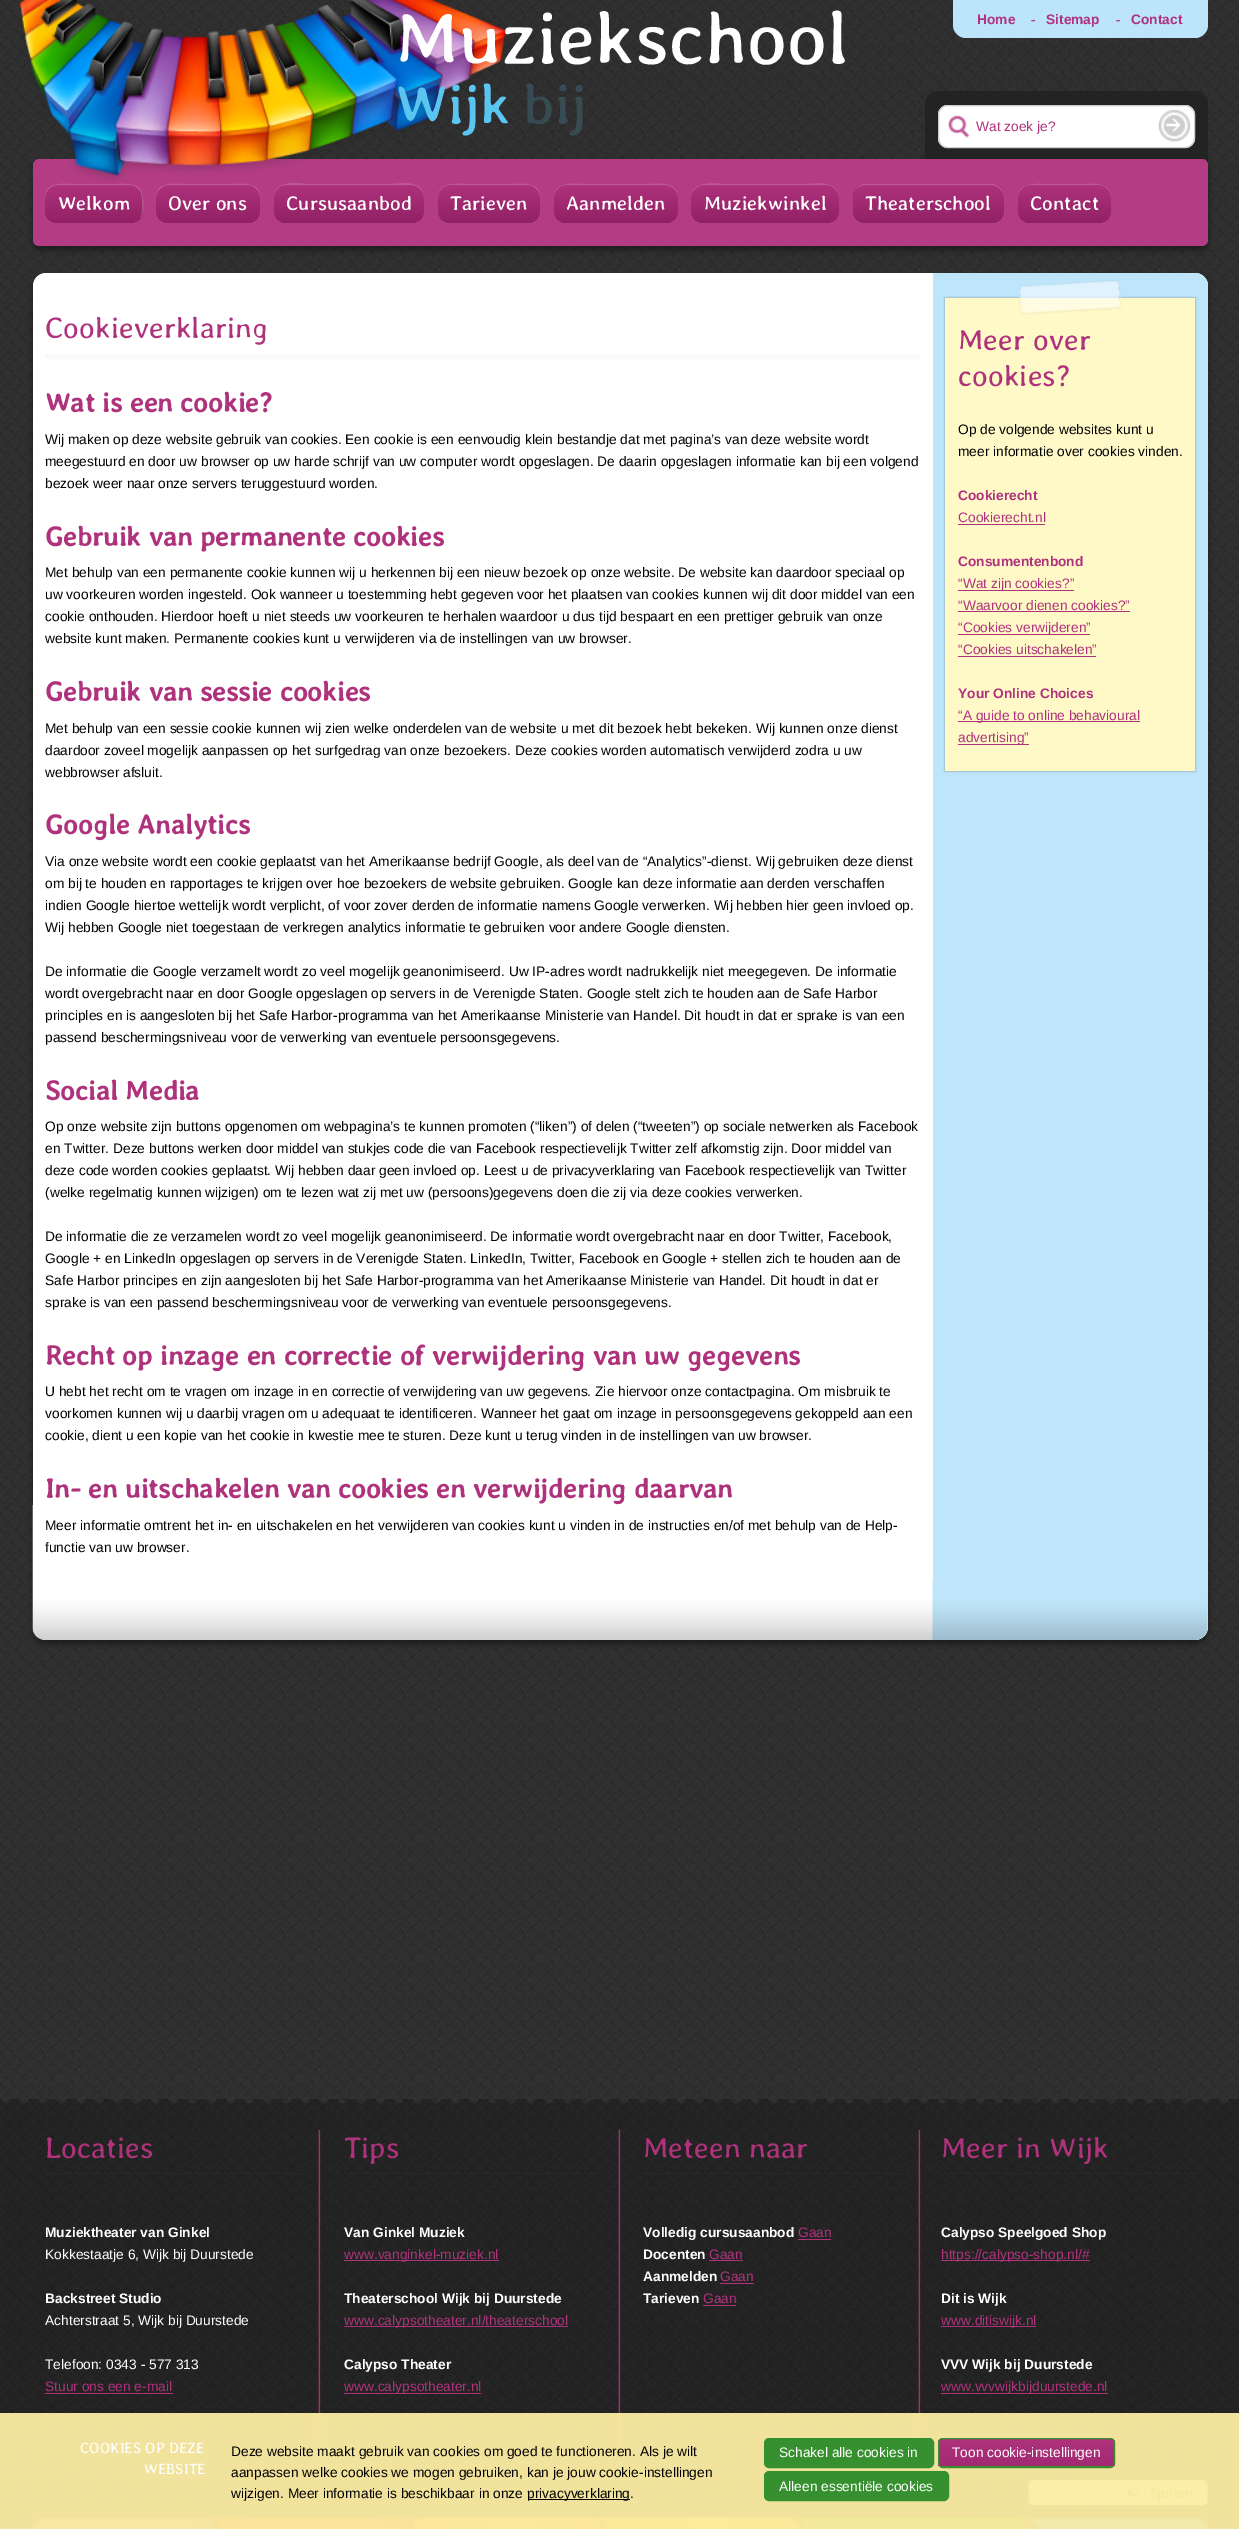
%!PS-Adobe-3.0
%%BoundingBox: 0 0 1239 2529
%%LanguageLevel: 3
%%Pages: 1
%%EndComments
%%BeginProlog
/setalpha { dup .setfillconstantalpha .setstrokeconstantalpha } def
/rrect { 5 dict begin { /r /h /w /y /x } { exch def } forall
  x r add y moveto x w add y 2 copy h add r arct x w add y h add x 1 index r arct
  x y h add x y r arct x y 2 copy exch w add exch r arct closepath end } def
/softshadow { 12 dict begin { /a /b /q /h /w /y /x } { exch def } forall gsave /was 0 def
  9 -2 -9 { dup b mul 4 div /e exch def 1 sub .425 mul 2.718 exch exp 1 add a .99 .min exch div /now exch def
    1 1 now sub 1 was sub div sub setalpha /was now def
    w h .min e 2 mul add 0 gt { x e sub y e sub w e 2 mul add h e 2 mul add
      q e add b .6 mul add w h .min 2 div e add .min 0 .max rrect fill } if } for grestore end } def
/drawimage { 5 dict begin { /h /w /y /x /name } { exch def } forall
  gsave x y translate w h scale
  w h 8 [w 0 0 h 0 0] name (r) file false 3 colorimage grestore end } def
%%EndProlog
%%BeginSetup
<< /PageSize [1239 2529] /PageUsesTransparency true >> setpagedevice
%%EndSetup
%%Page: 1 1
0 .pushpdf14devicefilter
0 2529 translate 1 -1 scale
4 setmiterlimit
1 setgray
0 0 1239 2529 rectfill
(images/1.raw) 0 0 1239 2529 drawimage
0.137 setgray
newpath 938 91 moveto 1195 91 lineto 1202 91 1208 97 1208 104 curveto 1208 165 lineto 925 165 lineto 925 104 lineto 925 97 931 91 938 91 curveto closepath fill
0 setgray
33 163 1175 87 6 3 0.38 softshadow
0.702 0.235 0.518 setrgbcolor
33 159 1175 87 6 rrect fill
(images/2.raw) 20 0 486 182 drawimage
0.737 0.894 0.98 setrgbcolor
newpath 953 0 moveto 1208 0 lineto 1208 25 lineto 1208 32 1202 38 1195 38 curveto 966 38 lineto 959 38 953 32 953 25 curveto closepath fill
(images/3.raw) 1031 19 5 3 drawimage
(images/3.raw) 1116 19 5 3 drawimage
1 setgray
938 105 257 43 10 rrect fill
(images/4.raw) 948 115 21 23 drawimage
0.8 setgray
938.5 105.5 256 42 9.5 rrect stroke
(images/5.raw) 1158 109 33 33 drawimage
gsave 45 184 98 39 13 rrect clip newpath
<< /ShadingType 2 /ColorSpace /DeviceRGB /Coords [94 184 94 223] /Extend [true true] /Function << /FunctionType 2 /Domain [0 1] /C0 [0.686 0.196 0.49] /C1 [0.569 0.129 0.392] /N 1 >> >> shfill grestore
0.2 setalpha
1 setgray
newpath 58 185 moveto 130 185 lineto 137 185 142 191 142 198 curveto 142 211 lineto 142 214 141 216 140 218 curveto 144 214 143 207 143 201 curveto 143 183 134 184 118 184 curveto 70 184 lineto 59 184 45 182 45 198 curveto 45 191 51 185 58 185 curveto closepath fill
1 setalpha
gsave 156 184 104 39 13 rrect clip newpath
<< /ShadingType 2 /ColorSpace /DeviceRGB /Coords [208 184 208 223] /Extend [true true] /Function << /FunctionType 2 /Domain [0 1] /C0 [0.686 0.196 0.49] /C1 [0.569 0.129 0.392] /N 1 >> >> shfill grestore
0.2 setalpha
newpath 169 185 moveto 248 185 lineto 254 185 260 191 260 198 curveto 260 182 246 184 234 184 curveto 182 184 lineto 170 184 156 182 156 198 curveto 156 191 162 185 169 185 curveto closepath fill
1 setalpha
gsave 274 184 150 39 13 rrect clip newpath
<< /ShadingType 2 /ColorSpace /DeviceRGB /Coords [349 184 349 223] /Extend [true true] /Function << /FunctionType 2 /Domain [0 1] /C0 [0.686 0.196 0.49] /C1 [0.569 0.129 0.392] /N 1 >> >> shfill grestore
0.2 setalpha
newpath 286 185 moveto 411 185 lineto 418 185 424 191 424 198 curveto 424 179 402 184 390 184 curveto 308 184 lineto 296 184 274 179 274 198 curveto 274 191 279 185 286 185 curveto closepath fill
1 setalpha
gsave 438 184 102 39 13 rrect clip newpath
<< /ShadingType 2 /ColorSpace /DeviceRGB /Coords [489 184 489 223] /Extend [true true] /Function << /FunctionType 2 /Domain [0 1] /C0 [0.686 0.196 0.49] /C1 [0.569 0.129 0.392] /N 1 >> >> shfill grestore
0.2 setalpha
newpath 450 185 moveto 528 185 lineto 534 185 540 191 540 198 curveto 540 182 526 184 514 184 curveto 464 184 lineto 452 184 438 182 438 198 curveto 438 191 443 185 450 185 curveto closepath fill
1 setalpha
gsave 554 184 124 39 13 rrect clip newpath
<< /ShadingType 2 /ColorSpace /DeviceRGB /Coords [616 184 616 223] /Extend [true true] /Function << /FunctionType 2 /Domain [0 1] /C0 [0.686 0.196 0.49] /C1 [0.569 0.129 0.392] /N 1 >> >> shfill grestore
0.2 setalpha
newpath 566 185 moveto 665 185 lineto 672 185 678 191 678 198 curveto 678 181 661 184 649 184 curveto 583 184 lineto 571 184 554 181 554 198 curveto 554 191 559 185 566 185 curveto closepath fill
1 setalpha
gsave 691 184 148 39 13 rrect clip newpath
<< /ShadingType 2 /ColorSpace /DeviceRGB /Coords [765 184 765 223] /Extend [true true] /Function << /FunctionType 2 /Domain [0 1] /C0 [0.686 0.196 0.49] /C1 [0.569 0.129 0.392] /N 1 >> >> shfill grestore
0.2 setalpha
newpath 704 185 moveto 826 185 lineto 833 185 839 191 839 198 curveto 839 180 818 184 806 184 curveto 724 184 lineto 712 184 691 180 691 198 curveto 691 191 697 185 704 185 curveto closepath fill
1 setalpha
gsave 853 184 151 39 13 rrect clip newpath
<< /ShadingType 2 /ColorSpace /DeviceRGB /Coords [928 184 928 223] /Extend [true true] /Function << /FunctionType 2 /Domain [0 1] /C0 [0.686 0.196 0.49] /C1 [0.569 0.129 0.392] /N 1 >> >> shfill grestore
0.2 setalpha
newpath 865 185 moveto 991 185 lineto 998 185 1004 191 1004 198 curveto 1004 197 lineto 1004 190 998 184 991 184 curveto 866 184 lineto 862 184 858 186 856 189 curveto 858 187 861 185 865 185 curveto closepath fill
1 setalpha
gsave 1018 184 93 39 13 rrect clip newpath
<< /ShadingType 2 /ColorSpace /DeviceRGB /Coords [1064 184 1064 223] /Extend [true true] /Function << /FunctionType 2 /Domain [0 1] /C0 [0.686 0.196 0.49] /C1 [0.569 0.129 0.392] /N 1 >> >> shfill grestore
0.2 setalpha
newpath 1030 185 moveto 1099 185 lineto 1106 185 1111 191 1111 198 curveto 1111 183 1098 184 1087 184 curveto 1042 184 lineto 1031 184 1018 183 1018 198 curveto 1018 191 1023 185 1030 185 curveto closepath fill
gsave
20 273 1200 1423 rectclip
1 setalpha
0 setgray
33 276 1175 1368 13 3 0.38 softshadow
grestore
1 setalpha
33 273 1175 1367 13 rrect fill
(images/6.raw) 32 1505 1176 135 drawimage
0.98 setgray
45 354 875 5 rectfill
0.749 0.898 0.98 setrgbcolor
newpath 933 273 moveto 1195 273 lineto 1202 273 1208 279 1208 286 curveto 1208 1627 lineto 1208 1634 1202 1640 1195 1640 curveto 933 1640 lineto closepath fill
(images/7.raw) 932 1581 276 59 drawimage
0.196 setgray
945 298 250 473 0 1 0.55 softshadow
1 0.976 0.78 setrgbcolor
945 298 250 473 rectfill
(images/8.raw) 1019 280 103 35 drawimage
0.686 0.196 0.49 setrgbcolor
958 524 87 1 rectfill
958 590 116 1 rectfill
958 611 172 1 rectfill
958 634 132 1 rectfill
958 656 138 1 rectfill
958 721 182 1 rectfill
958 744 71 1 rectfill
(images/9.raw) 0 2099 1239 6 drawimage
0.25 setalpha
0 setgray
0 2105 1239 424 rectfill
1 setalpha
(images/10.raw) 32 2517 1176 12 drawimage
(images/11.raw) 318 2130 603 338 drawimage
0.05 setalpha
0.502 setgray
45 2173 261 1 rectfill
1 setalpha
0.686 0.196 0.49 setrgbcolor
45 2393 128 1 rectfill
0.05 setalpha
0.502 setgray
344 2173 261 1 rectfill
1 setalpha
0.686 0.196 0.49 setrgbcolor
344 2260 155 1 rectfill
344 2326 224 1 rectfill
344 2393 137 1 rectfill
0.05 setalpha
0.502 setgray
643 2173 260 1 rectfill
1 setalpha
0.686 0.196 0.49 setrgbcolor
798 2239 33 1 rectfill
709 2260 34 1 rectfill
720 2283 34 1 rectfill
703 2305 33 1 rectfill
0.05 setalpha
0.502 setgray
942 2173 260 1 rectfill
1 setalpha
0.686 0.196 0.49 setrgbcolor
941 2260 149 1 rectfill
941 2326 95 1 rectfill
941 2393 167 1 rectfill
(images/12.raw) 1028 2480 180 25 drawimage
0.95 setalpha
0.988 0.929 0.639 setrgbcolor
0 2413 1239 116 rectfill
1 setalpha
0 setgray
528 2499 102 1 rectfill
0.216 0.565 0.184 setrgbcolor
764.5 2438.5 169 29 4.5 rrect gsave fill grestore
stroke
938 2438 177 30 5 rrect fill
gsave
938 2438 177 30 5 rrect clip newpath
gsave newpath 938 2439 moveto 1115 2439 lineto 1115 2466 lineto 938 2466 lineto closepath clip newpath
<< /ShadingType 2 /ColorSpace /DeviceRGB /Coords [1026 2439 1026 2466] /Extend [true true] /Function << /FunctionType 2 /Domain [0 1] /C0 [0.686 0.196 0.49] /C1 [0.631 0.165 0.447] /N 1 >> >> shfill grestore
grestore
938.5 2438.5 176 29 4.5 rrect stroke
764.5 2471.5 184 29 4.5 rrect gsave fill grestore
stroke
/AveriaLibre-Regular [75 0 0 -75 0 0] selectfont
1 setgray
395 64 moveto (Muziekschool) show
/AveriaLibre-Regular [57.5 0 0 -57.5 0 0] selectfont
0.357 0.773 0.949 setrgbcolor
395 124 moveto (Wijk) show
0.216 0.294 0.325 setrgbcolor
523 124 moveto (bij) show
/LiberationSans-Bold [13.75 0 0 -13.75 0 0] selectfont
0.686 0.196 0.49 setrgbcolor
977 24 moveto (Home) show
1046 24 moveto (Sitemap) show
1131 24 moveto (Contact) show
/LiberationSans-Regular [13.75 0 0 -13.75 0 0] selectfont
976 131 moveto (Wat zoek je?) show
/AveriaLibre-Regular [20 0 0 -20 0 0] selectfont
1 setgray
58 210 moveto (Welkom) show
168 210 moveto (Over ons) show
286 210 moveto (Cursusaanbod) show
450 210 moveto (Tarieven) show
566 210 moveto (Aanmelden) show
704 210 moveto (Muziekwinkel) show
865 210 moveto (Theaterschool) show
1030 210 moveto (Contact) show
/AveriaLibre-Light [30 0 0 -30 0 0] selectfont
0.686 0.196 0.49 setrgbcolor
45 338 moveto (Cookieverklaring) show
/AveriaLibre-Bold [27.5 0 0 -27.5 0 0] selectfont
45 412 moveto (Wat is een cookie?) show
/LiberationSans-Regular [13.75 0 0 -13.75 0 0] selectfont
0 setgray
45 444 moveto (Wij maken op deze website gebruik van cookies. Een cookie is een eenvoudig klein bestandje dat met pagina’s van deze website wordt) show
45 466 moveto (meegestuurd en door uw browser op uw harde schrijf van uw computer wordt opgeslagen. De daarin opgeslagen informatie kan bij een volgend) show
45 488 moveto (bezoek weer naar onze servers teruggestuurd worden.) show
/AveriaLibre-Bold [27.5 0 0 -27.5 0 0] selectfont
0.686 0.196 0.49 setrgbcolor
45 546 moveto (Gebruik van permanente cookies) show
/LiberationSans-Regular [13.75 0 0 -13.75 0 0] selectfont
0 setgray
45 577 moveto (Met behulp van een permanente cookie kunnen wij u herkennen bij een nieuw bezoek op onze website. De website kan daardoor speciaal op) show
45 599 moveto (uw voorkeuren worden ingesteld. Ook wanneer u toestemming hebt gegeven voor het plaatsen van cookies kunnen wij dit door middel van een) show
45 621 moveto (cookie onthouden. Hierdoor hoeft u niet steeds uw voorkeuren te herhalen waardoor u dus tijd bespaart en een prettiger gebruik van onze) show
45 643 moveto (website kunt maken. Permanente cookies kunt u verwijderen via de instellingen van uw browser.) show
/AveriaLibre-Bold [27.5 0 0 -27.5 0 0] selectfont
0.686 0.196 0.49 setrgbcolor
45 701 moveto (Gebruik van sessie cookies) show
/LiberationSans-Regular [13.75 0 0 -13.75 0 0] selectfont
0 setgray
45 733 moveto (Met behulp van een sessie cookie kunnen wij zien welke onderdelen van de website u met dit bezoek hebt bekeken. Wij kunnen onze dienst) show
45 755 moveto (daardoor zoveel mogelijk aanpassen op het surfgedrag van onze bezoekers. Deze cookies worden automatisch verwijderd zodra u uw) show
45 777 moveto (webbrowser afsluit.) show
/AveriaLibre-Bold [27.5 0 0 -27.5 0 0] selectfont
0.686 0.196 0.49 setrgbcolor
45 834 moveto (Google Analytics) show
/LiberationSans-Regular [13.75 0 0 -13.75 0 0] selectfont
0 setgray
45 866 moveto (Via onze website wordt een cookie geplaatst van het Amerikaanse bedrijf Google, als deel van de “Analytics”-dienst. Wij gebruiken deze dienst) show
45 888 moveto (om bij te houden en rapportages te krijgen over hoe bezoekers de website gebruiken. Google kan deze informatie aan derden verschaffen) show
45 910 moveto (indien Google hiertoe wettelijk wordt verplicht, of voor zover derden de informatie namens Google verwerken. Wij hebben hier geen invloed op.) show
45 932 moveto (Wij hebben Google niet toegestaan de verkregen analytics informatie te gebruiken voor andere Google diensten.) show
45 976 moveto (De informatie die Google verzamelt wordt zo veel mogelijk geanonimiseerd. Uw IP-adres wordt nadrukkelijk niet meegegeven. De informatie) show
45 998 moveto (wordt overgebracht naar en door Google opgeslagen op servers in de Verenigde Staten. Google stelt zich te houden aan de Safe Harbor) show
45 1020 moveto (principles en is aangesloten bij het Safe Harbor-programma van het Amerikaanse Ministerie van Handel. Dit houdt in dat er sprake is van een) show
45 1042 moveto (passend beschermingsniveau voor de verwerking van eventuele persoonsgegevens.) show
/AveriaLibre-Bold [27.5 0 0 -27.5 0 0] selectfont
0.686 0.196 0.49 setrgbcolor
45 1100 moveto (Social Media) show
/LiberationSans-Regular [13.75 0 0 -13.75 0 0] selectfont
0 setgray
45 1131 moveto (Op onze website zijn buttons opgenomen om webpagina’s te kunnen promoten \(“liken”\) of delen \(“tweeten”\) op sociale netwerken als Facebook) show
45 1153 moveto (en Twitter. Deze buttons werken door middel van stukjes code die van Facebook respectievelijk Twitter zelf afkomstig zijn. Door middel van) show
45 1175 moveto (deze code worden cookies geplaatst. Wij hebben daar geen invloed op. Leest u de privacyverklaring van Facebook respectievelijk van Twitter) show
45 1197 moveto (\(welke regelmatig kunnen wijzigen\) om te lezen wat zij met uw \(persoons\)gegevens doen die zij via deze cookies verwerken.) show
45 1241 moveto (De informatie die ze verzamelen wordt zo veel mogelijk geanonimiseerd. De informatie wordt overgebracht naar en door Twitter, Facebook,) show
45 1263 moveto (Google + en LinkedIn opgeslagen op servers in de Verenigde Staten. LinkedIn, Twitter, Facebook en Google + stellen zich te houden aan de) show
45 1285 moveto (Safe Harbor principes en zijn aangesloten bij het Safe Harbor-programma van het Amerikaanse Ministerie van Handel. Dit houdt in dat er) show
45 1307 moveto (sprake is van een passend beschermingsniveau voor de verwerking van eventuele persoonsgegevens.) show
/AveriaLibre-Bold [27.5 0 0 -27.5 0 0] selectfont
0.686 0.196 0.49 setrgbcolor
45 1365 moveto (Recht op inzage en correctie of verwijdering van uw gegevens) show
/LiberationSans-Regular [13.75 0 0 -13.75 0 0] selectfont
0 setgray
45 1396 moveto (U hebt het recht om te vragen om inzage in en correctie of verwijdering van uw gegevens. Zie hiervoor onze contactpagina. Om misbruik te) show
45 1418 moveto (voorkomen kunnen wij u daarbij vragen om u adequaat te identificeren. Wanneer het gaat om inzage in persoonsgegevens gekoppeld aan een) show
45 1440 moveto (cookie, dient u een kopie van het cookie in kwestie mee te sturen. Deze kunt u terug vinden in de instellingen van uw browser.) show
/AveriaLibre-Bold [27.5 0 0 -27.5 0 0] selectfont
0.686 0.196 0.49 setrgbcolor
45 1498 moveto (In- en uitschakelen van cookies en verwijdering daarvan) show
/LiberationSans-Regular [13.75 0 0 -13.75 0 0] selectfont
0 setgray
45 1530 moveto (Meer informatie omtrent het in- en uitschakelen en het verwijderen van cookies kunt u vinden in de instructies en/of met behulp van de Help-) show
45 1552 moveto (functie van uw browser.) show
/AveriaLibre-Light [30 0 0 -30 0 0] selectfont
0.686 0.196 0.49 setrgbcolor
958 350 moveto (Meer over) show
958 386 moveto (cookies?) show
/LiberationSans-Regular [13.75 0 0 -13.75 0 0] selectfont
0 setgray
958 434 moveto (Op de volgende websites kunt u) show
958 456 moveto (meer informatie over cookies vinden.) show
/LiberationSans-Bold [13.75 0 0 -13.75 0 0] selectfont
0.686 0.196 0.49 setrgbcolor
958 500 moveto (Cookierecht) show
/LiberationSans-Regular [13.75 0 0 -13.75 0 0] selectfont
958 522 moveto (Cookierecht.nl) show
/LiberationSans-Bold [13.75 0 0 -13.75 0 0] selectfont
958 566 moveto (Consumentenbond) show
/LiberationSans-Regular [13.75 0 0 -13.75 0 0] selectfont
958 588 moveto (“Wat zijn cookies?”) show
958 610 moveto (“Waarvoor dienen cookies?”) show
958 632 moveto (“Cookies verwijderen”) show
958 654 moveto (“Cookies uitschakelen”) show
/LiberationSans-Bold [13.75 0 0 -13.75 0 0] selectfont
958 698 moveto (Your Online Choices) show
/LiberationSans-Regular [13.75 0 0 -13.75 0 0] selectfont
958 720 moveto (“A guide to online behavioural) show
958 742 moveto (advertising”) show
/AveriaLibre-Light [30 0 0 -30 0 0] selectfont
45 2158 moveto (Locaties) show
/LiberationSans-Bold [13.75 0 0 -13.75 0 0] selectfont
1 setgray
45 2237 moveto (Muziektheater van Ginkel) show
/LiberationSans-Regular [13.75 0 0 -13.75 0 0] selectfont
45 2259 moveto (Kokkestaatje 6, Wijk bij Duurstede) show
/LiberationSans-Bold [13.75 0 0 -13.75 0 0] selectfont
45 2303 moveto (Backstreet Studio) show
/LiberationSans-Regular [13.75 0 0 -13.75 0 0] selectfont
45 2325 moveto (Achterstraat 5, Wijk bij Duurstede) show
45 2369 moveto (Telefoon: 0343 - 577 313) show
0.686 0.196 0.49 setrgbcolor
45 2391 moveto (Stuur ons een e-mail) show
/AveriaLibre-Light [30 0 0 -30 0 0] selectfont
344 2158 moveto (Tips) show
/LiberationSans-Bold [13.75 0 0 -13.75 0 0] selectfont
1 setgray
344 2237 moveto (Van Ginkel Muziek) show
/LiberationSans-Regular [13.75 0 0 -13.75 0 0] selectfont
0.686 0.196 0.49 setrgbcolor
344 2259 moveto (www.vanginkel-muziek.nl) show
/LiberationSans-Bold [13.75 0 0 -13.75 0 0] selectfont
1 setgray
344 2303 moveto (Theaterschool Wijk bij Duurstede) show
/LiberationSans-Regular [13.75 0 0 -13.75 0 0] selectfont
0.686 0.196 0.49 setrgbcolor
344 2325 moveto (www.calypsotheater.nl/theaterschool) show
/LiberationSans-Bold [13.75 0 0 -13.75 0 0] selectfont
1 setgray
344 2369 moveto (Calypso Theater) show
/LiberationSans-Regular [13.75 0 0 -13.75 0 0] selectfont
0.686 0.196 0.49 setrgbcolor
344 2391 moveto (www.calypsotheater.nl) show
/AveriaLibre-Light [30 0 0 -30 0 0] selectfont
643 2158 moveto (Meteen naar) show
/LiberationSans-Bold [13.75 0 0 -13.75 0 0] selectfont
1 setgray
643 2237 moveto (Volledig cursusaanbod) show
/LiberationSans-Regular [13.75 0 0 -13.75 0 0] selectfont
0.686 0.196 0.49 setrgbcolor
798 2237 moveto (Gaan) show
/LiberationSans-Bold [13.75 0 0 -13.75 0 0] selectfont
1 setgray
643 2259 moveto (Docenten) show
/LiberationSans-Regular [13.75 0 0 -13.75 0 0] selectfont
0.686 0.196 0.49 setrgbcolor
709 2259 moveto (Gaan) show
/LiberationSans-Bold [13.75 0 0 -13.75 0 0] selectfont
1 setgray
643 2281 moveto (Aanmelden) show
/LiberationSans-Regular [13.75 0 0 -13.75 0 0] selectfont
0.686 0.196 0.49 setrgbcolor
720 2281 moveto (Gaan) show
/LiberationSans-Bold [13.75 0 0 -13.75 0 0] selectfont
1 setgray
643 2303 moveto (Tarieven) show
/LiberationSans-Regular [13.75 0 0 -13.75 0 0] selectfont
0.686 0.196 0.49 setrgbcolor
703 2303 moveto (Gaan) show
/AveriaLibre-Light [30 0 0 -30 0 0] selectfont
941 2158 moveto (Meer in Wijk) show
/LiberationSans-Bold [13.75 0 0 -13.75 0 0] selectfont
1 setgray
941 2237 moveto (Calypso Speelgoed Shop) show
/LiberationSans-Regular [13.75 0 0 -13.75 0 0] selectfont
0.686 0.196 0.49 setrgbcolor
941 2259 moveto (https://calypso-shop.nl/#) show
/LiberationSans-Bold [13.75 0 0 -13.75 0 0] selectfont
1 setgray
941 2303 moveto (Dit is Wijk) show
/LiberationSans-Regular [13.75 0 0 -13.75 0 0] selectfont
0.686 0.196 0.49 setrgbcolor
941 2325 moveto (www.ditiswijk.nl) show
/LiberationSans-Bold [13.75 0 0 -13.75 0 0] selectfont
1 setgray
941 2369 moveto (VVV Wijk bij Duurstede) show
/LiberationSans-Regular [13.75 0 0 -13.75 0 0] selectfont
0.686 0.196 0.49 setrgbcolor
941 2391 moveto (www.vvvwijkbijduurstede.nl) show
/AveriaLibre-Light [15 0 0 -15 0 0] selectfont
1 setgray
80 2453 moveto (COOKIES OP DEZE) show
144 2474 moveto (WEBSITE) show
/LiberationSans-Regular [13.75 0 0 -13.75 0 0] selectfont
0 setgray
231 2456 moveto (Deze website maakt gebruik van cookies om goed te functioneren. Als je wilt) show
231 2477 moveto (aanpassen welke cookies we mogen gebruiken, kan je jouw cookie-instellingen) show
231 2498 moveto (wijzigen. Meer informatie is beschikbaar in onze) show
527 2498 moveto (privacyverklaring.) show
1 setgray
779 2457 moveto (Schakel alle cookies in) show
952 2457 moveto (Toon cookie-instellingen) show
779 2491 moveto (Alleen essentiële cookies) show
.poppdf14devicefilter showpage
%%EOF
